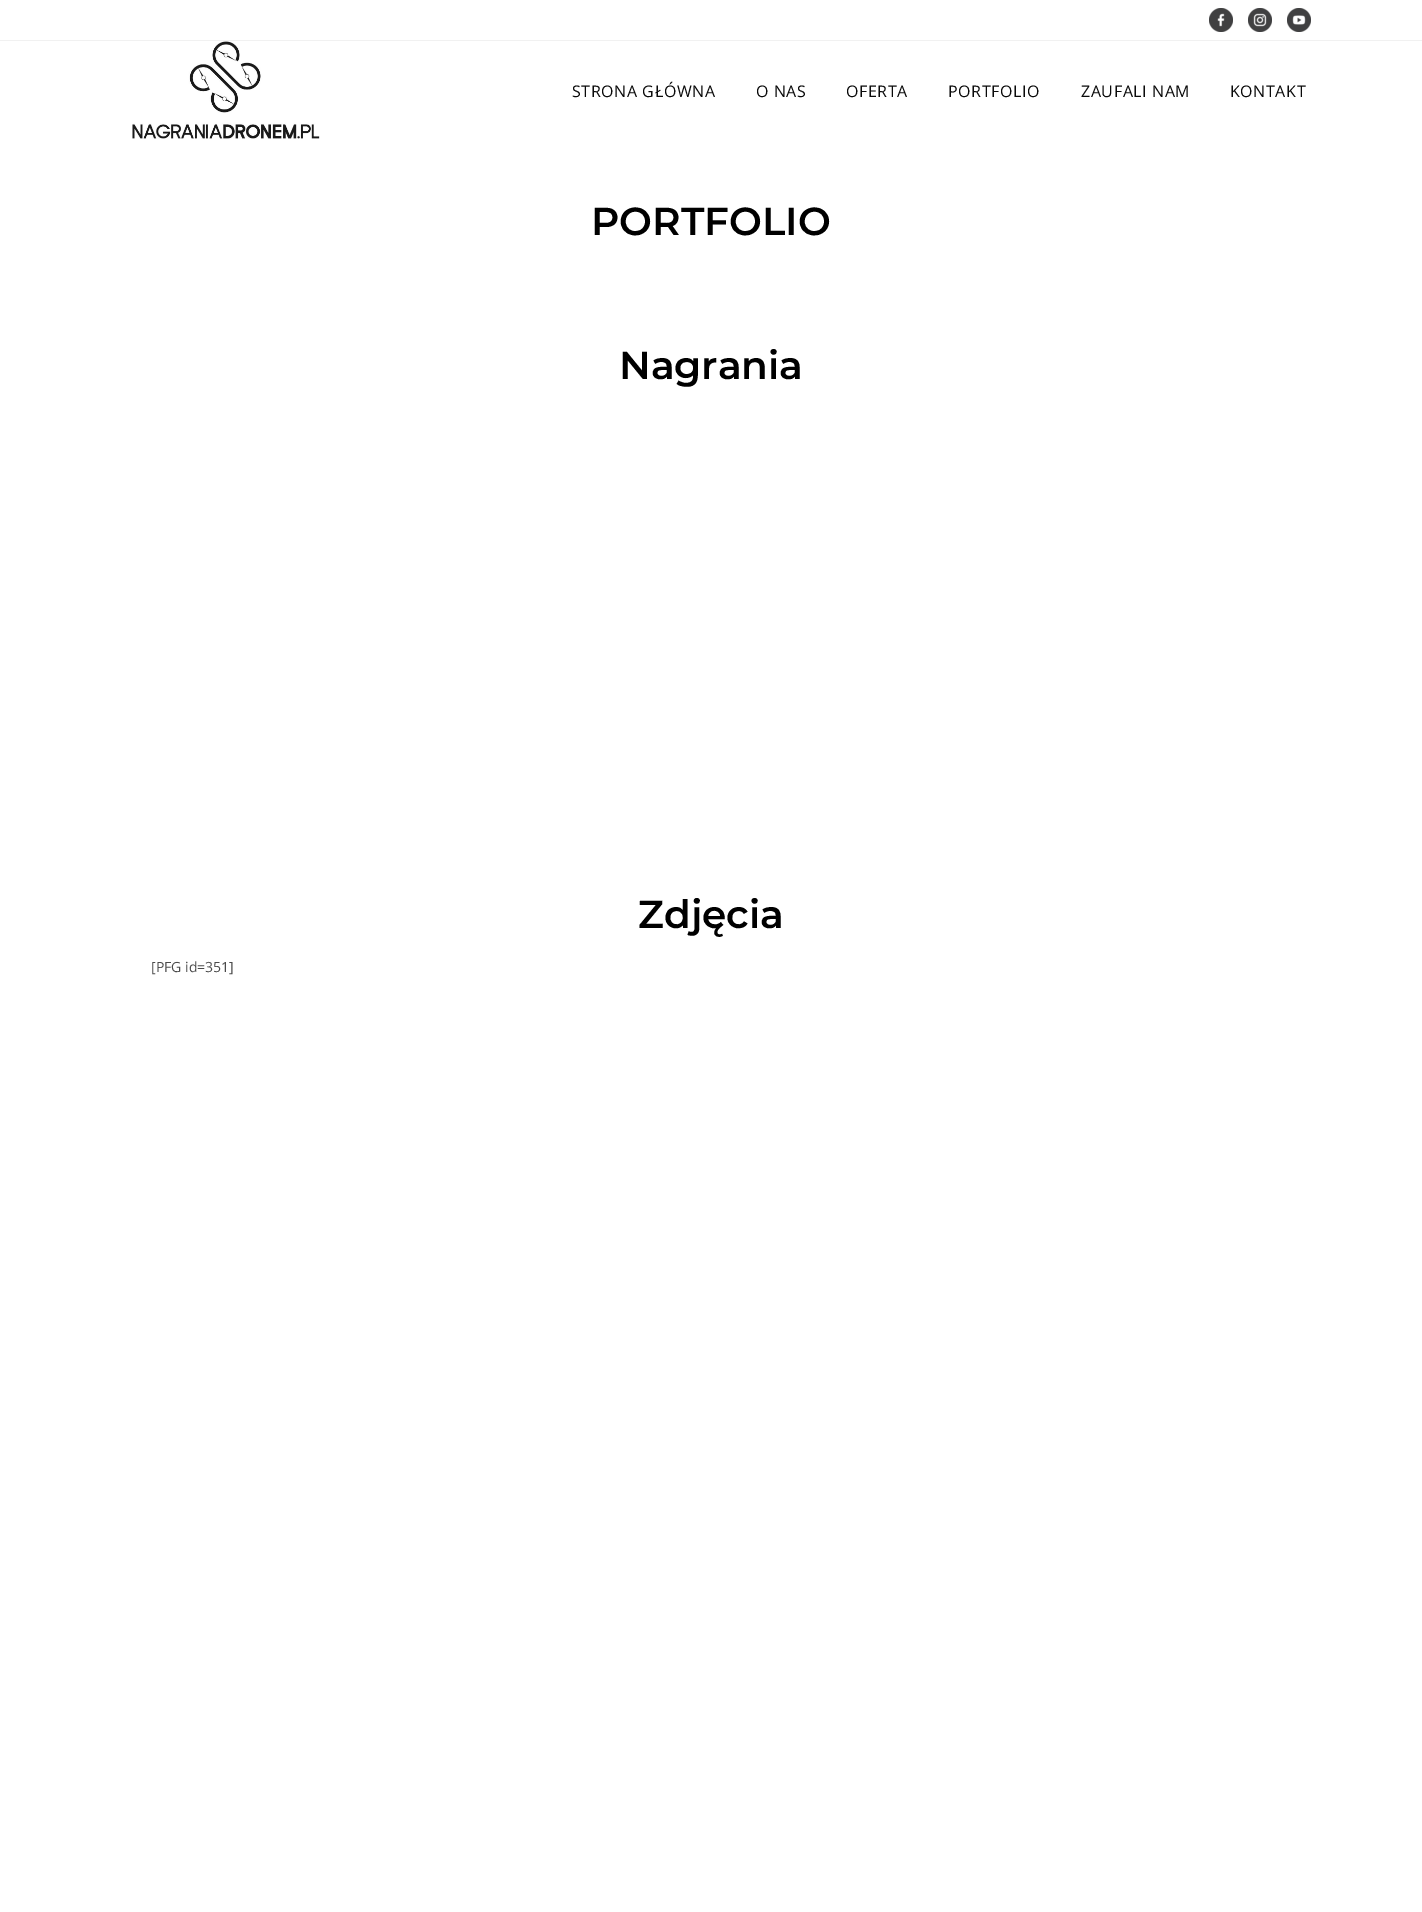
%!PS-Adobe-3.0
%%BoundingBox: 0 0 1422 1912
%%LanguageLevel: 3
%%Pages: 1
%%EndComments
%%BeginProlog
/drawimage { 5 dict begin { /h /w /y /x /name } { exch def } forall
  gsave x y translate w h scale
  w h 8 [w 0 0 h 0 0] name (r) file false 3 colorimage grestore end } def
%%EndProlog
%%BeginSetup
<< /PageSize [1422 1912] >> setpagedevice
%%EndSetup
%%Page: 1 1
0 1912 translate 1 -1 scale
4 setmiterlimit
1 setgray
0 0 1422 1912 rectfill
0.945 setgray
0 40 1422 1 rectfill
(images/1.raw) 1209 8 24 24 drawimage
(images/2.raw) 1248 8 24 24 drawimage
(images/3.raw) 1287 8 24 24 drawimage
(images/4.raw) 132 41 188 98 drawimage
/OpenSans-Regular [16 0 0 -16 0 0] selectfont
0.039 setgray
572 97 moveto 0.6 0 (STRONA GŁÓWNA) ashow
756 97 moveto 0.6 0 (O NAS) ashow
846 97 moveto 0.6 0 (OFERTA) ashow
948 97 moveto 0.6 0 (PORTFOLIO) ashow
1081 97 moveto 0.6 0 (ZAUFALI NAM) ashow
1230 97 moveto 0.6 0 (KONTAKT) ashow
/Montserrat-SemiBold [39 0 0 -39 0 0] selectfont
0 setgray
591 235 moveto (PORTFOLIO) show
619 379 moveto (Nagrania) show
638 928 moveto (Zdjęcia) show
/OpenSans-Regular [14 0 0 -14 0 0] selectfont
0.29 setgray
151 972 moveto ([PFG id=351]) show
showpage
%%EOF
